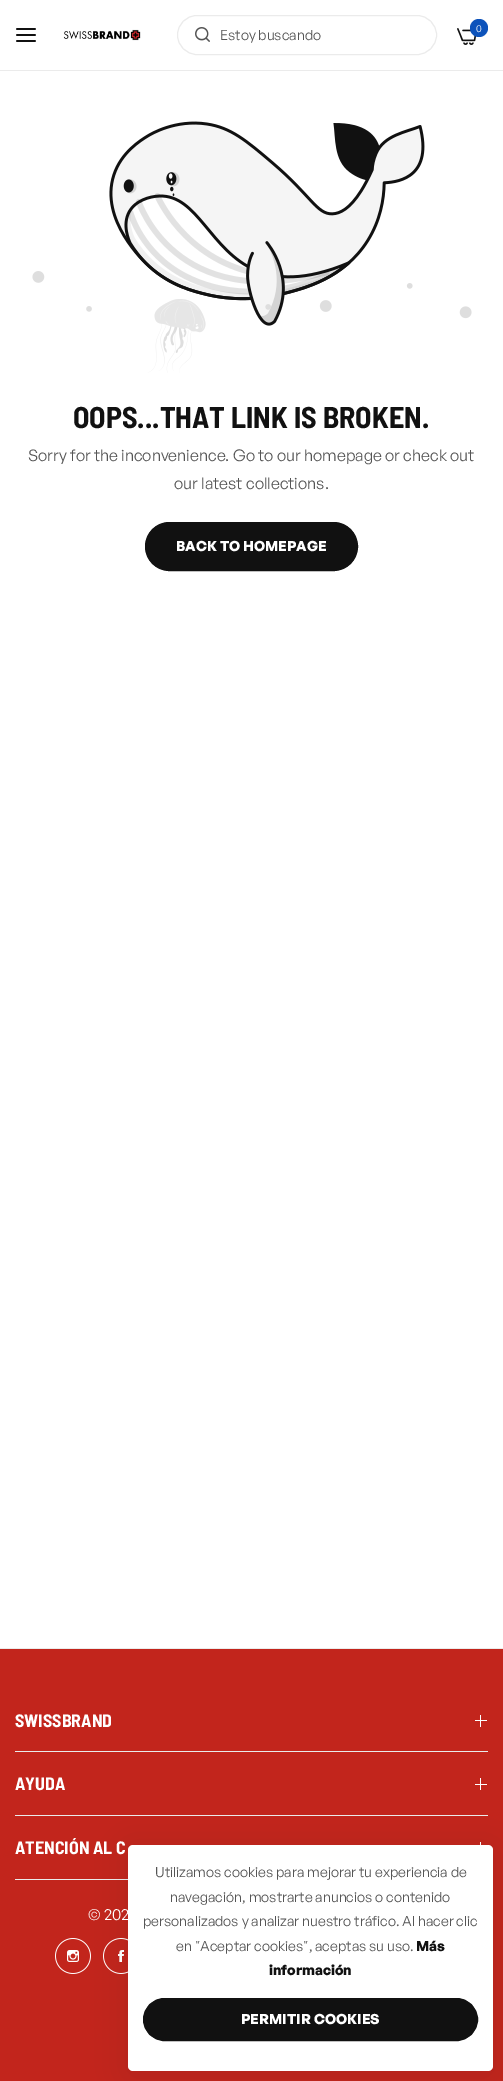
%!PS-Adobe-3.0
%%BoundingBox: 0 0 503 2081
%%LanguageLevel: 3
%%Pages: 1
%%EndComments
%%BeginProlog
/setalpha { dup .setfillconstantalpha .setstrokeconstantalpha } def
/rrect { 5 dict begin { /r /h /w /y /x } { exch def } forall
  x r add y moveto x w add y 2 copy h add r arct x w add y h add x 1 index r arct
  x y h add x y r arct x y 2 copy exch w add exch r arct closepath end } def
/softshadow { 12 dict begin { /a /b /q /h /w /y /x } { exch def } forall gsave /was 0 def
  9 -2 -9 { dup b mul 4 div /e exch def 1 sub .425 mul 2.718 exch exp 1 add a .99 .min exch div /now exch def
    1 1 now sub 1 was sub div sub setalpha /was now def
    w h .min e 2 mul add 0 gt { x e sub y e sub w e 2 mul add h e 2 mul add
      q e add b .6 mul add w h .min 2 div e add .min 0 .max rrect fill } if } for grestore end } def
/drawimage { 5 dict begin { /h /w /y /x /name } { exch def } forall
  gsave x y translate w h scale
  w h 8 [w 0 0 h 0 0] name (r) file false 3 colorimage grestore end } def
%%EndProlog
%%BeginSetup
<< /PageSize [503 2081] /PageUsesTransparency true >> setpagedevice
%%EndSetup
%%Page: 1 1
0 .pushpdf14devicefilter
0 2081 translate 1 -1 scale
4 setmiterlimit
1 setgray
0 0 503 2081 rectfill
0.922 setgray
0 70 503 1 rectfill
(images/1.raw) 16 28 20 14 drawimage
(images/2.raw) 63 29 78 12 drawimage
177.5 15.5 259 39 19.5 rrect stroke
(images/3.raw) 195 27 15 15 drawimage
(images/4.raw) 457 28 20 17 drawimage
0.051 0.325 0.733 setrgbcolor
newpath 479 28 9 0 360 arc closepath fill
(images/5.raw) 32 121 440 252 drawimage
0.067 setgray
145.5 522.5 212 48 24 rrect gsave fill grestore
stroke
0.761 0.145 0.11 setrgbcolor
0 1649 503 432 rectfill
0.922 setgray
0 1648 503 1 rectfill
1 setgray
480 1715 1 12 rectfill
475 1720 12 1 rectfill
0.922 setgray
15 1751 473 1 rectfill
1 setgray
480 1778 1 12 rectfill
475 1784 12 1 rectfill
0.922 setgray
15 1815 473 1 rectfill
1 setgray
480 1842 1 3 rectfill
0.922 setgray
15 1879 113 1 rectfill
(images/6.raw) 55 1938 36 36 drawimage
(images/7.raw) 103 1938 25 36 drawimage
0 setgray
128 1850 365 226 5 15 0.08 softshadow
1 setgray
128 1845 365 226 5 rrect fill
0.067 setgray
143.5 1998.5 334 42 21 rrect gsave fill grestore
stroke
/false-Regular [14 0 0 -14 0 0] selectfont
0.333 setgray
220 40 moveto (Estoy buscando) show
/false-Regular [10 0 0 -10 0 0] selectfont
1 setgray
476 32 moveto (0) show
/BarlowSemiCondensed-Bold [30 0 0 -30 0 0] selectfont
0.067 setgray
73 428 moveto (OOPS...THAT LINK IS BROKEN.) show
/false-Regular [16 0 0 -16 0 0] selectfont
0.333 setgray
28 461 moveto (Sorry for the inconvenience. Go to our homepage or check out) show
174 489 moveto (our latest collections.) show
/false-Bold [14 0 0 -14 0 0] selectfont
1 setgray
176 551 moveto (BACK TO HOMEPAGE) show
/BarlowSemiCondensed-Bold [18 0 0 -18 0 0] selectfont
15 1727 moveto (SWISSBRAND) show
15 1790 moveto (AYUDA) show
15 1854 moveto (ATENCIÓN AL C) show
/false-Regular [16 0 0 -16 0 0] selectfont
88 1920 moveto (© 202) show
/false-Regular [14 0 0 -14 0 0] selectfont
0.333 setgray
155 1877 moveto (Utilizamos cookies para mejorar tu experiencia de) show
170 1902 moveto (navegación, mostrarte anuncios o contenido) show
143 1926 moveto (personalizados y analizar nuestro tráfico. Al hacer clic) show
176 1951 moveto (en "Aceptar cookies", aceptas su uso.) show
/false-Bold [14 0 0 -14 0 0] selectfont
0.067 setgray
416 1951 moveto (Más) show
269 1975 moveto (información) show
1 setgray
241 2024 moveto (PERMITIR COOKIES) show
.poppdf14devicefilter showpage
%%EOF
